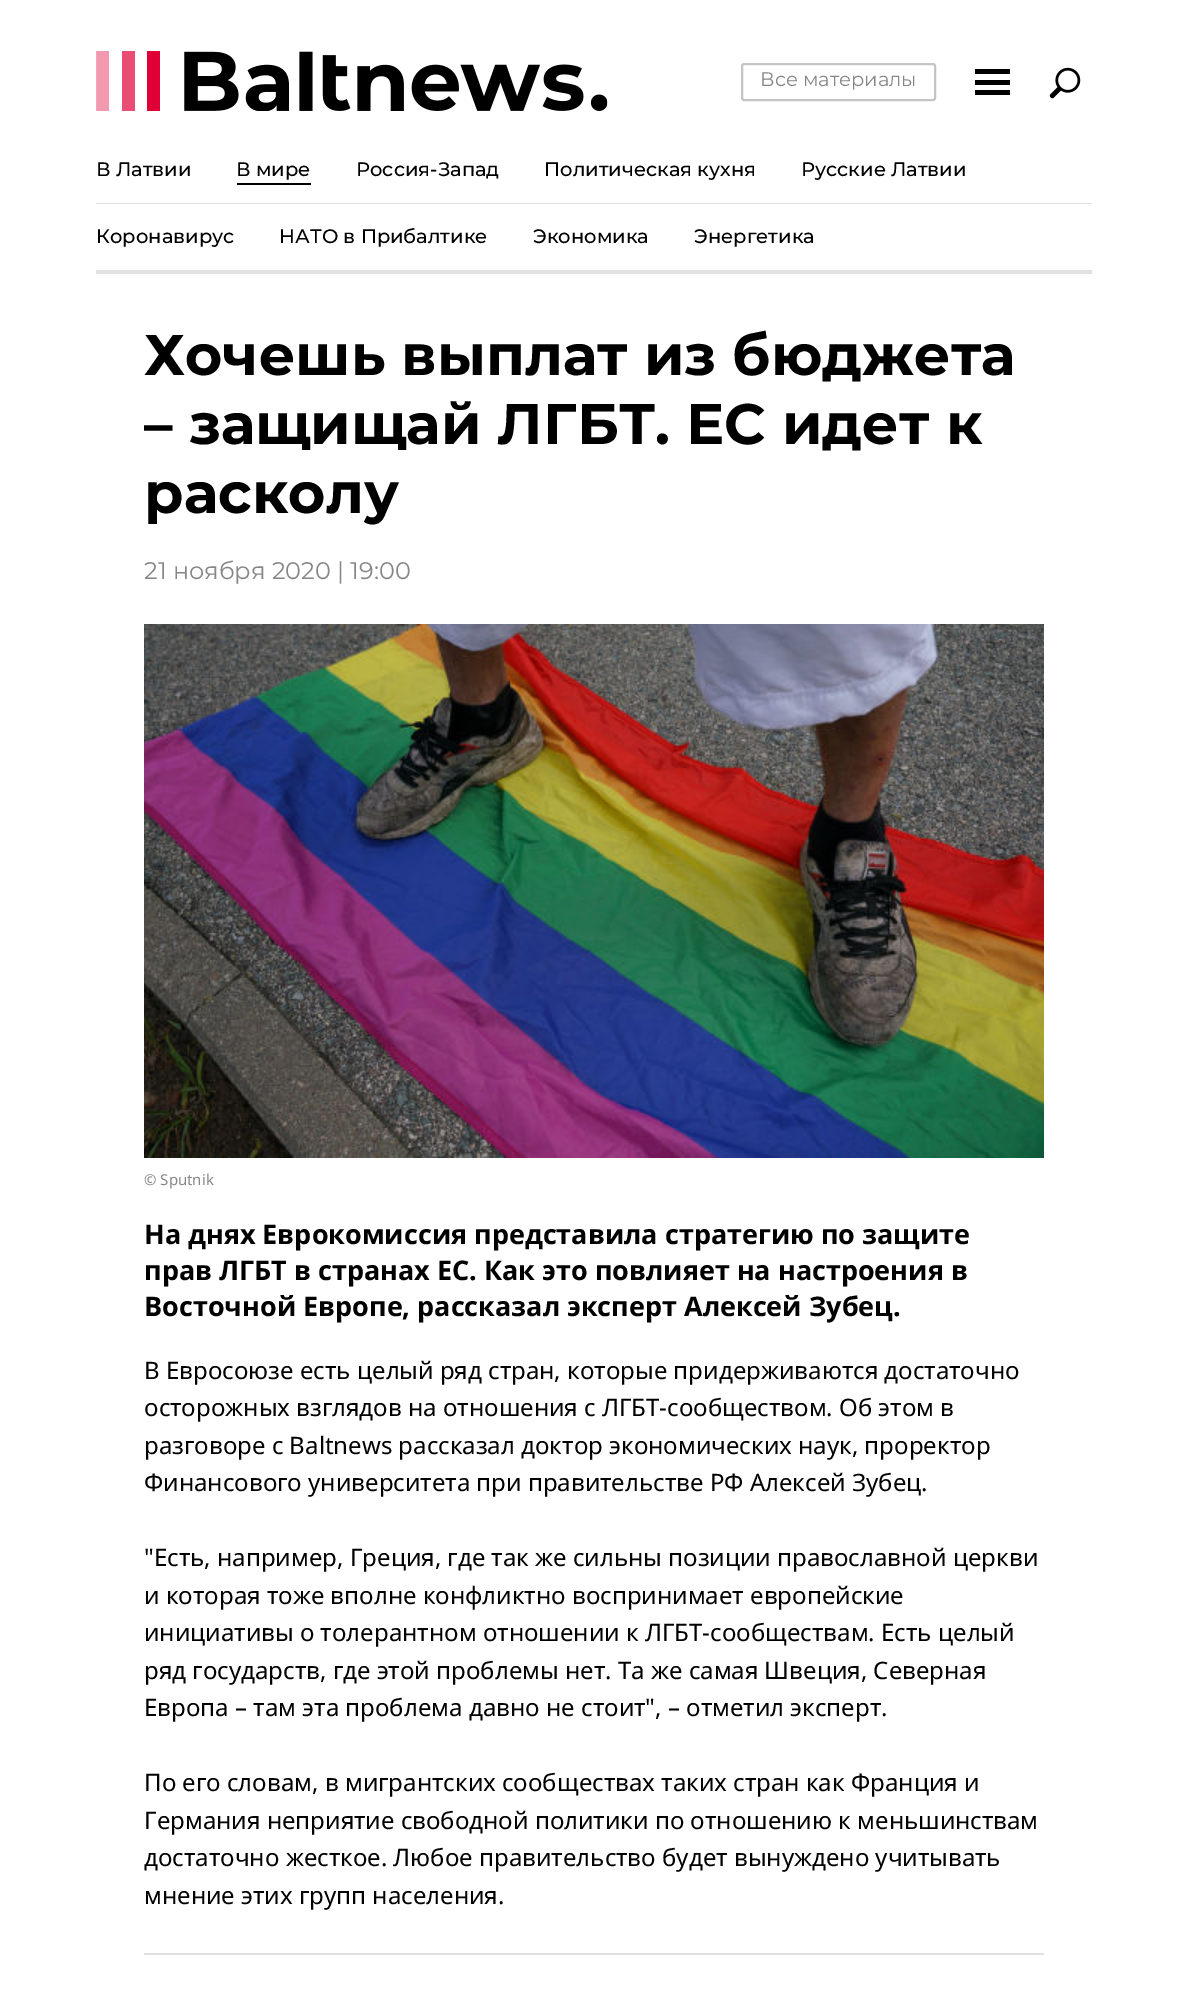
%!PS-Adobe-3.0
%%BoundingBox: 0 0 1188 1991
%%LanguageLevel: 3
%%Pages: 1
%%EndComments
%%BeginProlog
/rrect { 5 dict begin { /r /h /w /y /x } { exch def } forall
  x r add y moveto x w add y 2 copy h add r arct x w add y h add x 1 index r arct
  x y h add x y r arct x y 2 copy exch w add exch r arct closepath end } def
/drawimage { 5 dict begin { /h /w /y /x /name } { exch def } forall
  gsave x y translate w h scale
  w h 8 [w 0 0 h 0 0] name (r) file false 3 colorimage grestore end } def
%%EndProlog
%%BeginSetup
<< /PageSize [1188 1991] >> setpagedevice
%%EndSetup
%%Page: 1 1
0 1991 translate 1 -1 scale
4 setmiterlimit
1 setgray
0 0 1188 1991 rectfill
(images/1.raw) 96 51 512 60 drawimage
0.769 setgray
2 setlinewidth
742 64 193 36 2 rrect stroke
0 setgray
975 90 35 5 rectfill
975 80 35 5 rectfill
975 69 35 5 rectfill
(images/2.raw) 1049 67 32 32 drawimage
0.882 setgray
96 270 996 4 rectfill
96 203 996 1 rectfill
0 setgray
237 183 74 2 rectfill
(images/3.raw) 144 624 900 534 drawimage
0.882 setgray
144 1953 900 2 rectfill
/Montserrat-Regular [19.5 0 0 -19.5 0 0] selectfont
0.525 setgray
760 86 moveto (Все материалы) show
/Montserrat-Medium [19.5 0 0 -19.5 0 0] selectfont
0 setgray
96 176 moveto (В Латвии) show
236 176 moveto (В мире) show
356 176 moveto (Россия-Запад) show
544 176 moveto (Политическая кухня) show
801 176 moveto (Русские Латвии) show
96 243 moveto (Коронавирус) show
279 243 moveto (НАТО в Прибалтике) show
533 243 moveto (Экономика) show
694 243 moveto (Энергетика) show
/Montserrat-Bold [57 0 0 -57 0 0] selectfont
144 375 moveto (Хочешь выплат из бюджета) show
144 444 moveto (– защищай ЛГБТ. ЕС идет к) show
144 513 moveto (расколу) show
/Montserrat-Regular [24 0 0 -24 0 0] selectfont
0.525 setgray
144 579 moveto (21 ноября 2020 | 19:00) show
/NotoSans-Regular [15 0 0 -15 0 0] selectfont
144 1185 moveto (© Sputnik) show
/NotoSans-Bold [27 0 0 -27 0 0] selectfont
0 setgray
144 1244 moveto (На днях Еврокомиссия представила стратегию по защите) show
144 1280 moveto (прав ЛГБТ в странах ЕС. Как это повлияет на настроения в) show
144 1316 moveto (Восточной Европе, рассказал эксперт Алексей Зубец.) show
/NotoSans-Regular [24 0 0 -24 0 0] selectfont
144 1379 moveto (В Евросоюзе есть целый ряд стран, которые придерживаются достаточно) show
144 1416 moveto (осторожных взглядов на отношения с ЛГБТ-сообществом. Об этом в) show
144 1454 moveto (разговоре с Baltnews рассказал доктор экономических наук, проректор) show
144 1491 moveto (Финансового университета при правительстве РФ Алексей Зубец.) show
144 1566 moveto ("Есть, например, Греция, где так же сильны позиции православной церкви) show
144 1604 moveto (и которая тоже вполне конфликтно воспринимает европейские) show
144 1641 moveto (инициативы о толерантном отношении к ЛГБТ-сообществам. Есть целый) show
144 1679 moveto (ряд государств, где этой проблемы нет. Та же самая Швеция, Северная) show
144 1716 moveto (Европа – там эта проблема давно не стоит", – отметил эксперт.) show
144 1791 moveto (По его словам, в мигрантских сообществах таких стран как Франция и) show
144 1829 moveto (Германия неприятие свободной политики по отношению к меньшинствам) show
144 1866 moveto (достаточно жесткое. Любое правительство будет вынуждено учитывать) show
144 1904 moveto (мнение этих групп населения.) show
showpage
%%EOF
